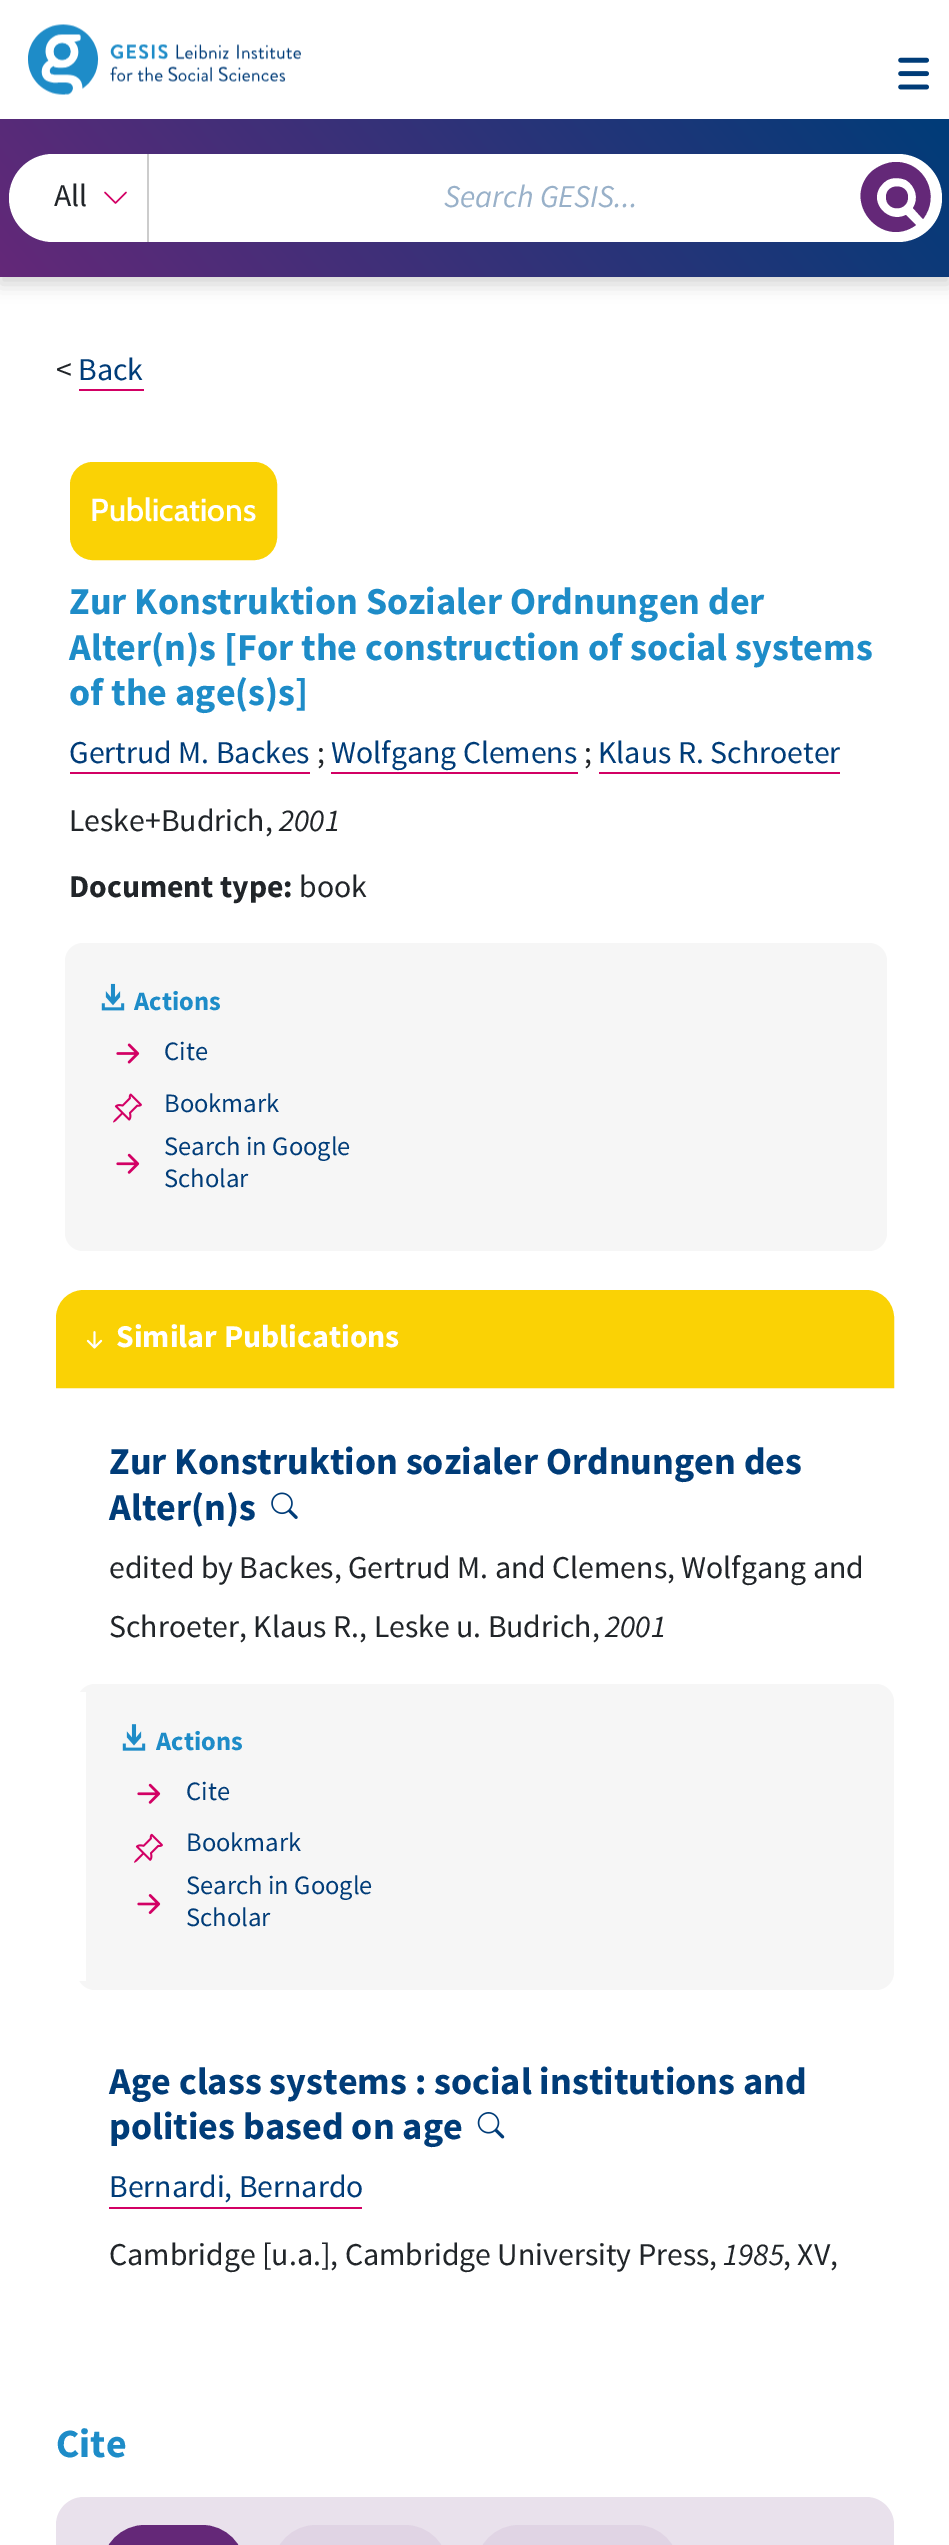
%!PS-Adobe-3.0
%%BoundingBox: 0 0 949 2545
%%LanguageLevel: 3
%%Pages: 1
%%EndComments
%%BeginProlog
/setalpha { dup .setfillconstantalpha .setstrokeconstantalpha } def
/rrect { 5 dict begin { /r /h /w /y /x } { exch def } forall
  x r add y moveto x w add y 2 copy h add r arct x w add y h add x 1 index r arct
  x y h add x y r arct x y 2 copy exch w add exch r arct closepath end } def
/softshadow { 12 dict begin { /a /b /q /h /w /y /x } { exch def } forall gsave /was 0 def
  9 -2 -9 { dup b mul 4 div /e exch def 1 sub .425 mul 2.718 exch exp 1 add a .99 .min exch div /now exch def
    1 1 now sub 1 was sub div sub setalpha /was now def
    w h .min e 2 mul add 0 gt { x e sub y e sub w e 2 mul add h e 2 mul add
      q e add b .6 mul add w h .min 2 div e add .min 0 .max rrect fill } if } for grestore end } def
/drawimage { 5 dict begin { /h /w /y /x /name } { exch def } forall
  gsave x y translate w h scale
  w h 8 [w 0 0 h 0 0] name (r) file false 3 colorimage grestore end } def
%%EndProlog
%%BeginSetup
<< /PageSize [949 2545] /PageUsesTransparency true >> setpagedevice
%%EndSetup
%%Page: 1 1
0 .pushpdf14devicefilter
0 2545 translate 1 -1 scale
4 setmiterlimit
1 setgray
0 0 949 2545 rectfill
0 setgray
0 7 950 277 0 9 0.18 softshadow
1 setgray
0 0 949 119 rectfill
(images/1.raw) 28 24 273 71 drawimage
(images/2.raw) 898 57 31 33 drawimage
gsave newpath 0 119 moveto 949 119 lineto 949 277 lineto 0 277 lineto closepath clip newpath
<< /ShadingType 2 /ColorSpace /DeviceRGB /Coords [158 464 793 -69] /Extend [true true] /Function << /FunctionType 2 /Domain [0 1] /C0 [0.392 0.157 0.471] /C1 [0 0.235 0.471] /N 1 >> >> shfill grestore
9 154 933 88 44 rrect fill
(images/3.raw) 104 191 23 13 drawimage
0.8 setgray
147 154 2 88 rectfill
0.392 0.157 0.471 setrgbcolor
newpath 908 197 moveto 908 212 886 212 886 197 curveto 886 183 908 183 908 197 curveto closepath 896 162 moveto 887 162 878 166 871 172 curveto 841 202 882 250 916 225 curveto 906 215 lineto 888 224 869 203 880 187 curveto 883 183 886 180 890 179 curveto 895 177 901 178 906 180 curveto 916 186 919 199 913 208 curveto 923 219 lineto 941 196 925 162 896 162 curveto closepath 923 219 moveto 913 208 lineto closepath fill
0.824 0 0.392 setrgbcolor
79 389 65 2 rectfill
0.98 0.824 0.02 setrgbcolor
72 464 203 94 21 rrect gsave fill grestore
4 setlinewidth
stroke
0.824 0 0.392 setrgbcolor
70 772 240 2 rectfill
331 772 247 2 rectfill
599 772 241 2 rectfill
0.965 setgray
65 943 822 308 18 rrect fill
(images/4.raw) 101 983 24 28 drawimage
(images/5.raw) 116 1043 24 21 drawimage
(images/6.raw) 113 1093 29 30 drawimage
(images/7.raw) 116 1153 24 21 drawimage
0.98 0.824 0.02 setrgbcolor
newpath 84 1292 moveto 866 1292 lineto 880.5 1292 892 1303.5 892 1318 curveto 892 1386 lineto 58 1386 lineto 58 1318 lineto 58 1303.5 69.5 1292 84 1292 curveto closepath gsave fill grestore
stroke
(images/8.raw) 86 1331 17 18 drawimage
(images/9.raw) 271 1492 27 27 drawimage
0.965 setgray
77 1684 817 306 18 rrect fill
1 setgray
77 1692 9 289 rectfill
(images/10.raw) 122 1724 24 27 drawimage
(images/7.raw) 137 1783 24 21 drawimage
(images/11.raw) 134 1833 29 30 drawimage
(images/12.raw) 137 1894 24 20 drawimage
(images/13.raw) 477 2112 28 27 drawimage
0.824 0 0.392 setrgbcolor
109 2207 253 2 rectfill
0.914 0.882 0.925 setrgbcolor
newpath 84 2497 moveto 866 2497 lineto 881.5 2497 894 2509.5 894 2525 curveto 894 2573 lineto 56 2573 lineto 56 2525 lineto 56 2509.5 68.5 2497 84 2497 curveto closepath fill
0.392 0.157 0.471 setrgbcolor
104 2527 139 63 41 rrect gsave fill grestore
stroke
0.878 0.831 0.894 setrgbcolor
275 2527 171 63 41 rrect gsave fill grestore
stroke
478 2527 199 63 41 rrect gsave fill grestore
stroke
/SourceSansPro-Regular [31.75 0 0 -31.75 0 0] selectfont
0.129 0.145 0.161 setrgbcolor
54 206 moveto (All) show
/SourceSansPro-Italic [31.75 0 0 -31.75 0 0] selectfont
0.6 0.694 0.788 setrgbcolor
444 207 moveto (Search GESIS...) show
/SourceSansPro-Regular [31.75 0 0 -31.75 0 0] selectfont
0.129 0.145 0.161 setrgbcolor
56 380 moveto (<) show
0 0.235 0.471 setrgbcolor
78 380 moveto (Back) show
/Cabin-SemiBold [31.75 0 0 -31.75 0 0] selectfont
1 setgray
90 521 moveto (Publications) show
/SourceSansPro-Bold [38.1 0 0 -38.1 0 0] selectfont
0.118 0.549 0.784 setrgbcolor
69 614 moveto (Zur Konstruktion Sozialer Ordnungen der) show
69 660 moveto (Alter\(n\)s [For the construction of social systems) show
69 705 moveto (of the age\(s\)s]) show
/SourceSansPro-Regular [31.75 0 0 -31.75 0 0] selectfont
0 0.235 0.471 setrgbcolor
69 763 moveto (Gertrud M. Backes) show
0.129 0.145 0.161 setrgbcolor
317 763 moveto (;) show
0 0.235 0.471 setrgbcolor
331 763 moveto (Wolfgang Clemens) show
0.129 0.145 0.161 setrgbcolor
584 763 moveto (;) show
0 0.235 0.471 setrgbcolor
598 763 moveto (Klaus R. Schroeter) show
0.129 0.145 0.161 setrgbcolor
69 831 moveto (Leske+Budrich,) show
/SourceSansPro-Italic [31.75 0 0 -31.75 0 0] selectfont
279 831 moveto (2001) show
/SourceSansPro-Bold [31.75 0 0 -31.75 0 0] selectfont
69 897 moveto (Document type:) show
/SourceSansPro-Regular [31.75 0 0 -31.75 0 0] selectfont
299 897 moveto (book) show
/SourceSansPro-Bold [26.5 0 0 -26.5 0 0] selectfont
0.118 0.549 0.784 setrgbcolor
134 1010 moveto (Actions) show
/SourceSansPro-Regular [26.5 0 0 -26.5 0 0] selectfont
0 0.235 0.471 setrgbcolor
164 1060 moveto (Cite) show
164 1112 moveto (Bookmark) show
164 1155 moveto (Search in Google) show
164 1187 moveto (Scholar) show
/SourceSansPro-Bold [31.75 0 0 -31.75 0 0] selectfont
1 setgray
116 1347 moveto (Similar Publications) show
/SourceSansPro-Bold [38.1 0 0 -38.1 0 0] selectfont
0 0.235 0.471 setrgbcolor
109 1474 moveto (Zur Konstruktion sozialer Ordnungen des) show
109 1520 moveto (Alter\(n\)s) show
/SourceSansPro-Regular [31.75 0 0 -31.75 0 0] selectfont
0.129 0.145 0.161 setrgbcolor
109 1578 moveto (edited by Backes, Gertrud M. and Clemens, Wolfgang and) show
109 1637 moveto (Schroeter, Klaus R., Leske u. Budrich,) show
/SourceSansPro-Italic [31.75 0 0 -31.75 0 0] selectfont
605 1637 moveto (2001) show
/SourceSansPro-Bold [26.5 0 0 -26.5 0 0] selectfont
0.118 0.549 0.784 setrgbcolor
156 1750 moveto (Actions) show
/SourceSansPro-Regular [26.5 0 0 -26.5 0 0] selectfont
0 0.235 0.471 setrgbcolor
186 1800 moveto (Cite) show
186 1851 moveto (Bookmark) show
186 1894 moveto (Search in Google) show
186 1926 moveto (Scholar) show
/SourceSansPro-Bold [38.1 0 0 -38.1 0 0] selectfont
109 2094 moveto (Age class systems : social institutions and) show
109 2139 moveto (polities based on age) show
/SourceSansPro-Regular [31.75 0 0 -31.75 0 0] selectfont
109 2197 moveto (Bernardi, Bernardo) show
0.129 0.145 0.161 setrgbcolor
109 2265 moveto (Cambridge [u.a.], Cambridge University Press,) show
/SourceSansPro-Italic [31.75 0 0 -31.75 0 0] selectfont
723 2265 moveto (1985) show
/SourceSansPro-Regular [31.75 0 0 -31.75 0 0] selectfont
783 2265 moveto (, XV,) show
/SourceSansPro-Bold [40 0 0 -40 0 0] selectfont
0.118 0.549 0.784 setrgbcolor
56 2457 moveto (Cite) show
.poppdf14devicefilter showpage
%%EOF
